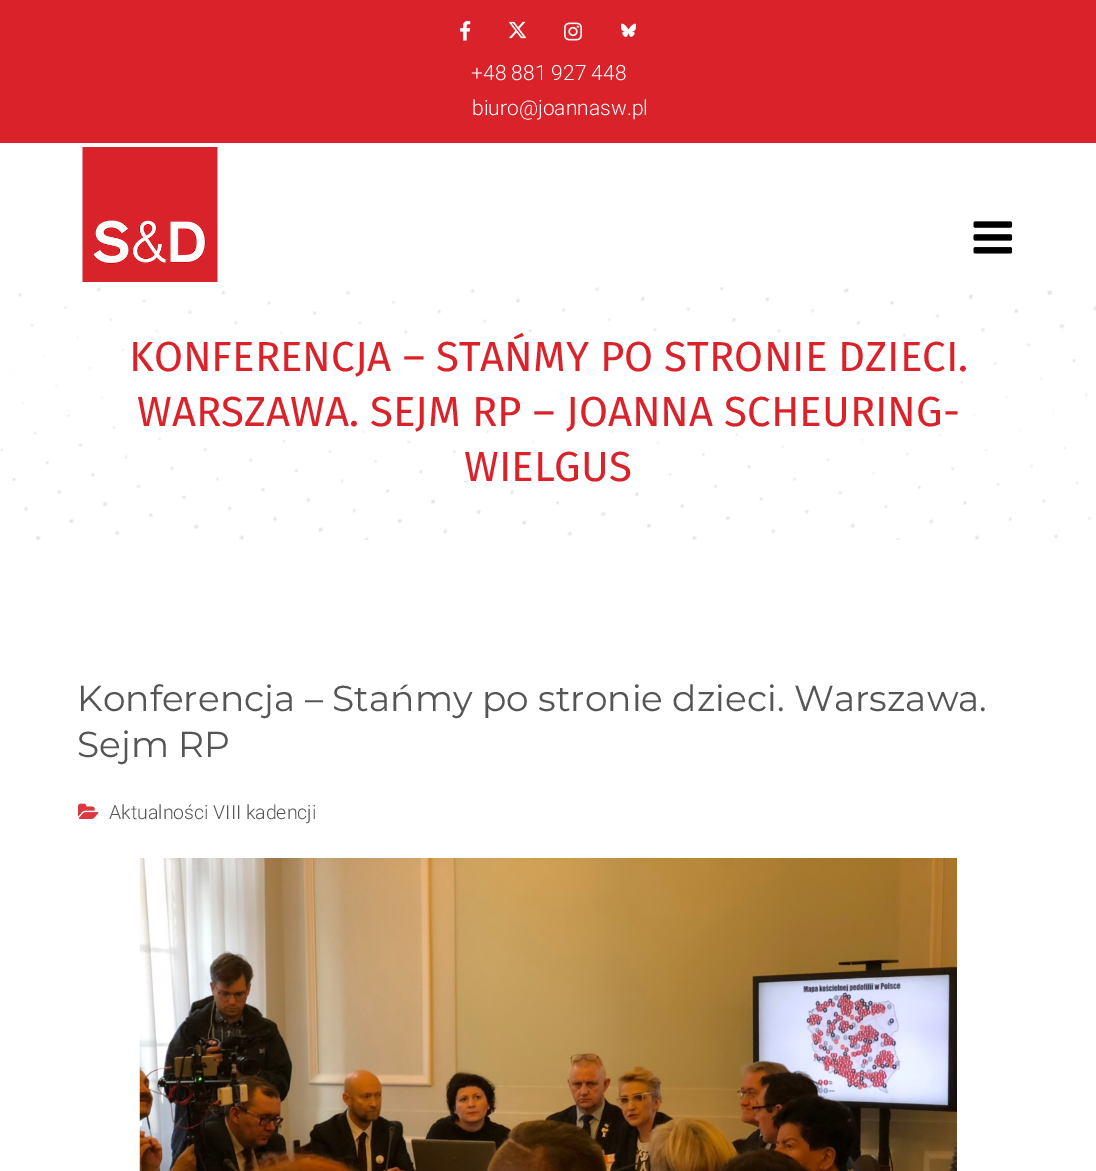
%!PS-Adobe-3.0
%%BoundingBox: 0 0 1096 1171
%%LanguageLevel: 3
%%Pages: 1
%%EndComments
%%BeginProlog
/drawimage { 5 dict begin { /h /w /y /x /name } { exch def } forall
  gsave x y translate w h scale
  w h 8 [w 0 0 h 0 0] name (r) file false 3 colorimage grestore end } def
%%EndProlog
%%BeginSetup
<< /PageSize [1096 1171] >> setpagedevice
%%EndSetup
%%Page: 1 1
0 1171 translate 1 -1 scale
4 setmiterlimit
1 setgray
0 0 1096 1171 rectfill
0.851 0.133 0.165 setrgbcolor
0 0 1096 143 rectfill
(images/1.raw) 460 21 11 20 drawimage
(images/2.raw) 509 21 18 18 drawimage
(images/3.raw) 564 22 18 19 drawimage
(images/4.raw) 621 23 15 14 drawimage
(images/5.raw) 82 147 136 135 drawimage
(images/6.raw) 973 221 40 33 drawimage
(images/7.raw) 0 287 1096 253 drawimage
(images/8.raw) 78 803 21 16 drawimage
(images/9.raw) 139 858 818 313 drawimage
/Roboto-Light [21 0 0 -21 0 0] selectfont
1 setgray
471 80 moveto (+48 881 927 448) show
472 115 moveto (biuro@joannasw.pl) show
/FiraSans-Regular [42 0 0 -42 0 0] selectfont
0.851 0.133 0.165 setrgbcolor
129 371 moveto (KONFERENCJA – STAŃMY PO STRONIE DZIECI.) show
137 426 moveto (WARSZAWA. SEJM RP – JOANNA SCHEURING-) show
464 481 moveto (WIELGUS) show
/Montserrat-Regular [36 0 0 -36 0 0] selectfont
0.333 setgray
77 711 moveto (Konferencja – Stańmy po stronie dzieci. Warszawa.) show
77 757 moveto (Sejm RP) show
/Roboto-Light [19.5 0 0 -19.5 0 0] selectfont
109 819 moveto (Aktualności VIII kadencji) show
showpage
%%EOF
